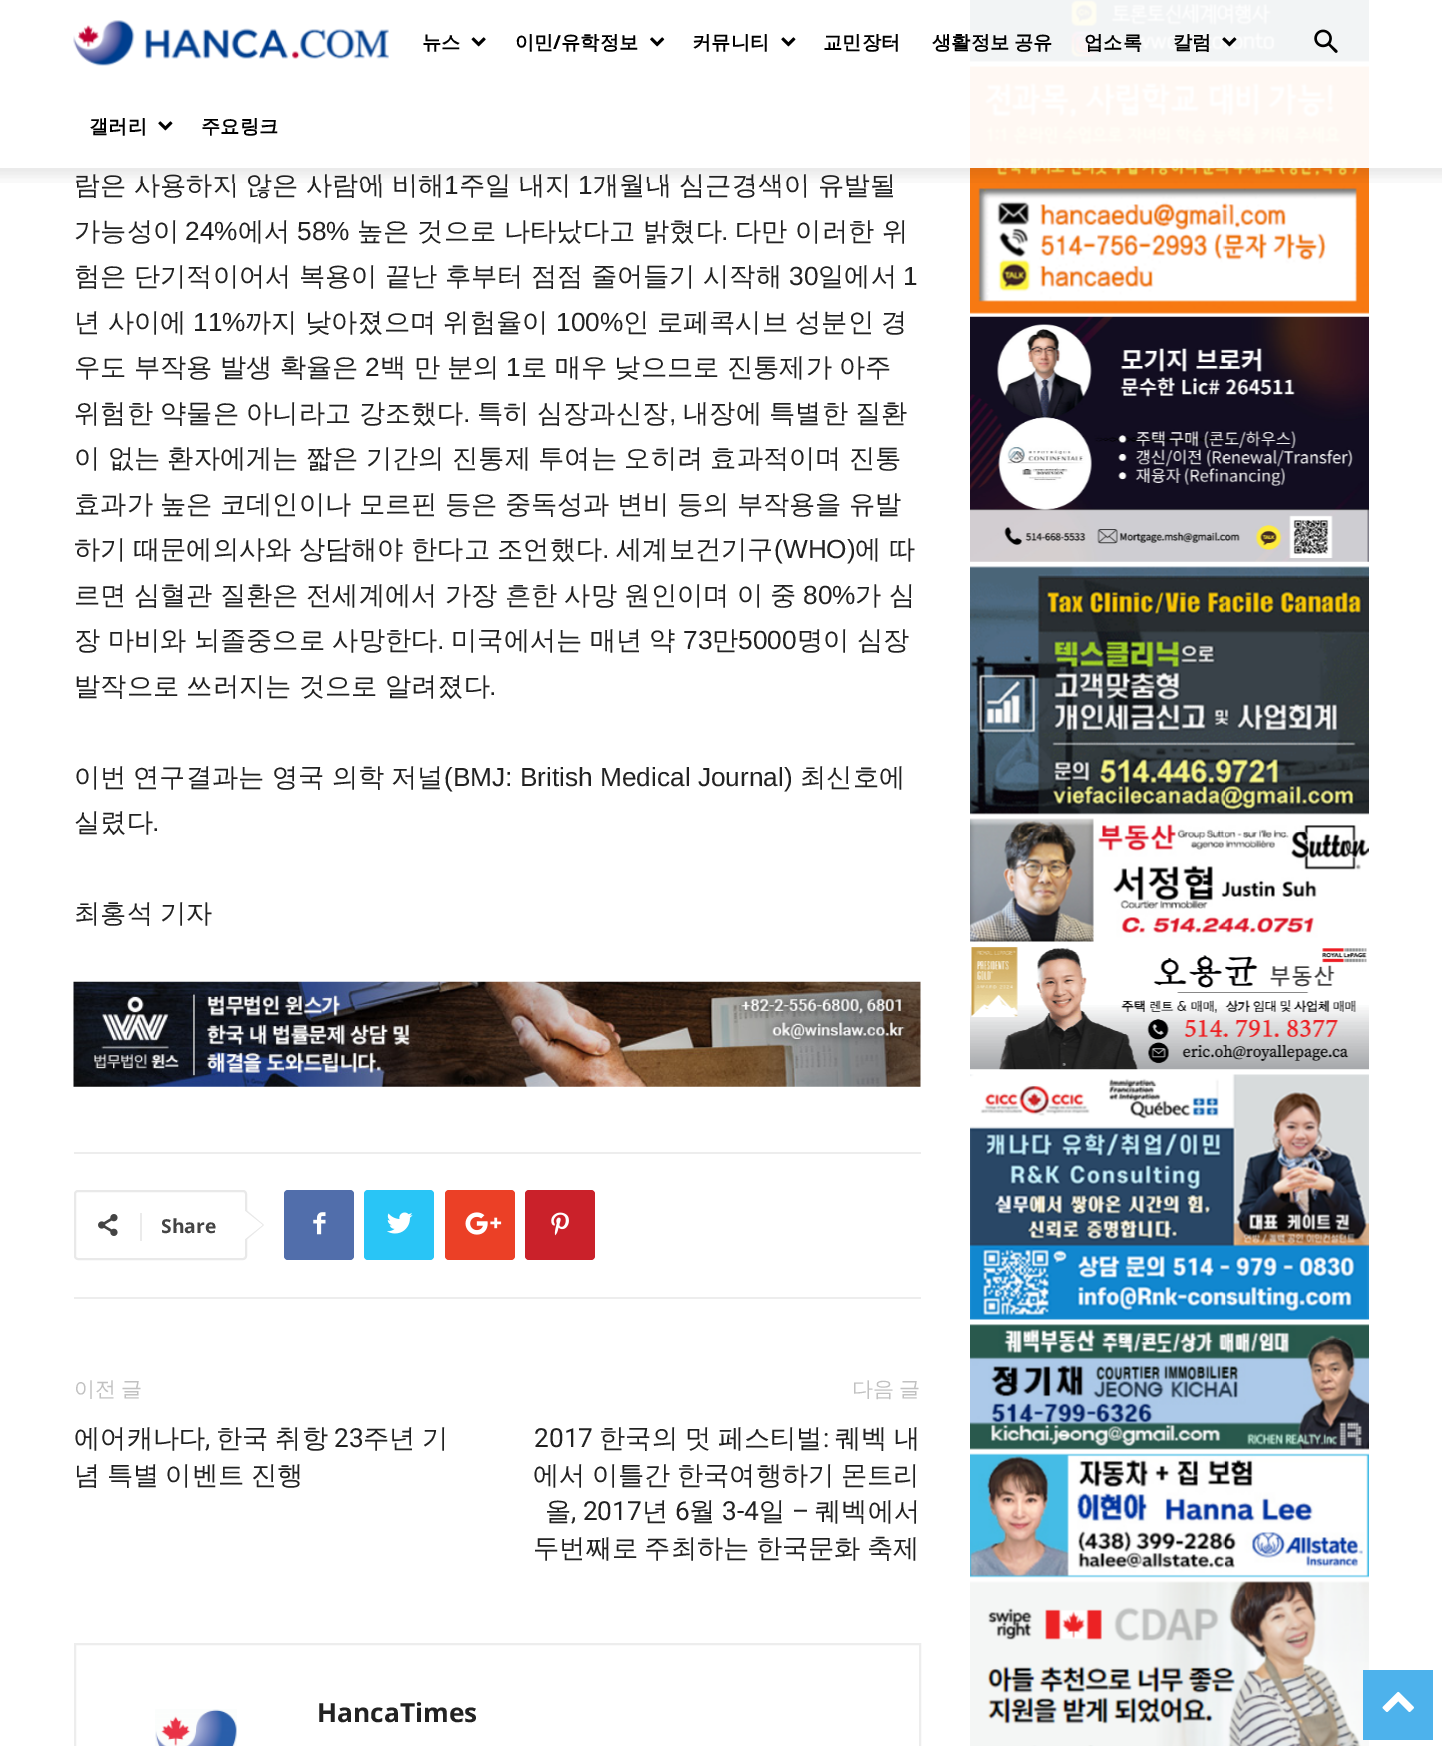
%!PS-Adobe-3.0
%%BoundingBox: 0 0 1442 1746
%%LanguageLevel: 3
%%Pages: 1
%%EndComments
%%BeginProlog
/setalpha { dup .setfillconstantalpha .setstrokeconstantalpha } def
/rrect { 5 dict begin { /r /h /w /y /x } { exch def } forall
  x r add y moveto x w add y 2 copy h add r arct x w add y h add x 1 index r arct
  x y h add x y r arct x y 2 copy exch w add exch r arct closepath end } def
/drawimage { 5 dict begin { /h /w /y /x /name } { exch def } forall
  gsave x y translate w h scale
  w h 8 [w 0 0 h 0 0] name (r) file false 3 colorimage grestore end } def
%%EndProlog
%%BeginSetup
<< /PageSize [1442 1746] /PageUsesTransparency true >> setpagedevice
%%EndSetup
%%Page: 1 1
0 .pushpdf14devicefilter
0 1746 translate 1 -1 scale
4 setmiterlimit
1 setgray
0 0 1442 1746 rectfill
(images/15.raw) 970 0 399 62 drawimage
(images/16.raw) 970 66 399 248 drawimage
0.95 setalpha
970 0 399 168 rectfill
1 setalpha
(images/1.raw) 73 20 316 46 drawimage
(images/2.raw) 471 37 15 10 drawimage
(images/3.raw) 650 37 15 10 drawimage
(images/4.raw) 781 37 15 10 drawimage
(images/5.raw) 1222 37 15 10 drawimage
(images/4.raw) 158 121 15 10 drawimage
(images/6.raw) 1314 29 24 24 drawimage
(images/8.raw) 73 981 848 106 drawimage
0.929 setgray
74 1152 847 2 rectfill
74 1297 847 2 rectfill
0.914 setgray
2 setlinewidth
75 1191 171 68 3 rrect stroke
newpath 245 1241 moveto 245 1209 lineto 264 1225 lineto closepath fill
(images/9.raw) 98 1214 20 22 drawimage
0.922 setgray
140 1213 2 28 rectfill
1 setgray
newpath 245 1239 moveto 245 1211 lineto 262.5 1225 lineto closepath fill
0.318 0.431 0.671 setrgbcolor
284 1190 70 70 4 rrect fill
(images/10.raw) 313 1212 13 23 drawimage
0.161 0.773 0.965 setrgbcolor
364 1190 70 70 4 rrect fill
(images/11.raw) 387 1212 26 22 drawimage
0.922 0.251 0.149 setrgbcolor
445 1190 70 70 4 rrect fill
(images/12.raw) 465 1212 37 23 drawimage
0.792 0.129 0.165 setrgbcolor
525 1190 70 70 4 rrect fill
(images/13.raw) 551 1212 18 24 drawimage
0.929 setgray
75 1644 845 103 rectstroke
(images/14.raw) 155 1709 82 37 drawimage
(images/17.raw) 970 316 399 246 drawimage
(images/18.raw) 970 566 399 249 drawimage
(images/19.raw) 970 818 399 124 drawimage
(images/20.raw) 970 947 399 123 drawimage
(images/21.raw) 970 1074 399 246 drawimage
(images/22.raw) 970 1324 399 126 drawimage
(images/23.raw) 970 1453 399 125 drawimage
(images/24.raw) 970 1581 399 165 drawimage
0.302 0.698 0.925 setrgbcolor
1363 1670 70 70 rectfill
(images/25.raw) 1382 1691 32 21 drawimage
/WenQuanYiZenHei-Bold [19.25 0 0 -19.25 0 0] selectfont
0 setgray
422 49 moveto (뉴스) show
515 49 moveto (이민) show
/OpenSans-Bold [19.25 0 0 -19.25 0 0] selectfont
553 49 moveto (/) show
/WenQuanYiZenHei-Bold [19.25 0 0 -19.25 0 0] selectfont
561 49 moveto (유학정보) show
692 49 moveto (커뮤니티) show
823 49 moveto (교민장터) show
932 49 moveto -1 0 32 (생활정보 공유) widthshow
1084 49 moveto (업소록) show
1173 49 moveto (칼럼) show
89 133 moveto (갤러리) show
201 133 moveto (주요링크) show
/WenQuanYiZenHei-Medium [26.25 0 0 -26.25 0 0] selectfont
0.133 setgray
74 194 moveto -0.5 0 32 (람은 사용하지 않은 사람에 비해) widthshow
/LiberationSans-Regular [26.25 0 0 -26.25 0 0] selectfont
444 194 moveto (1) show
/WenQuanYiZenHei-Medium [26.25 0 0 -26.25 0 0] selectfont
459 194 moveto -0.5 0 32 (주일 내지) widthshow
/LiberationSans-Regular [26.25 0 0 -26.25 0 0] selectfont
578 194 moveto (1) show
/WenQuanYiZenHei-Medium [26.25 0 0 -26.25 0 0] selectfont
593 194 moveto -0.5 0 32 (개월내 심근경색이 유발될) widthshow
(images/7.raw) 0 168 1442 15 drawimage
74 240 moveto (가능성이) show
/LiberationSans-Regular [26.25 0 0 -26.25 0 0] selectfont
185 240 moveto (24%) show
/WenQuanYiZenHei-Medium [26.25 0 0 -26.25 0 0] selectfont
238 240 moveto (에서) show
/LiberationSans-Regular [26.25 0 0 -26.25 0 0] selectfont
297 240 moveto (58%) show
/WenQuanYiZenHei-Medium [26.25 0 0 -26.25 0 0] selectfont
357 240 moveto (높은 것으로 나타났다고 밝혔다) show
/LiberationSans-Regular [26.25 0 0 -26.25 0 0] selectfont
721 240 moveto (.) show
/WenQuanYiZenHei-Medium [26.25 0 0 -26.25 0 0] selectfont
735 240 moveto (다만 이러한 위) show
74 285 moveto -0.5 0 32 (험은 단기적이어서 복용이 끝난 후부터 점점 줄어들기 시작해) widthshow
/LiberationSans-Regular [26.25 0 0 -26.25 0 0] selectfont
789 285 moveto (30) show
/WenQuanYiZenHei-Medium [26.25 0 0 -26.25 0 0] selectfont
818 285 moveto (일에서) show
/LiberationSans-Regular [26.25 0 0 -26.25 0 0] selectfont
903 285 moveto (1) show
/WenQuanYiZenHei-Medium [26.25 0 0 -26.25 0 0] selectfont
74 331 moveto -0.5 0 32 (년 사이에) widthshow
/LiberationSans-Regular [26.25 0 0 -26.25 0 0] selectfont
193 331 moveto (11%) show
/WenQuanYiZenHei-Medium [26.25 0 0 -26.25 0 0] selectfont
245 331 moveto -0.5 0 32 (까지 낮아졌으며 위험율이) widthshow
/LiberationSans-Regular [26.25 0 0 -26.25 0 0] selectfont
556 331 moveto (100%) show
/WenQuanYiZenHei-Medium [26.25 0 0 -26.25 0 0] selectfont
623 331 moveto -0.5 0 32 (인 로페콕시브 성분인 경) widthshow
74 376 moveto -0.5 0 32 (우도 부작용 발생 확율은) widthshow
/LiberationSans-Regular [26.25 0 0 -26.25 0 0] selectfont
365 376 moveto (2) show
/WenQuanYiZenHei-Medium [26.25 0 0 -26.25 0 0] selectfont
380 376 moveto -0.5 0 32 (백 만 분의) widthshow
/LiberationSans-Regular [26.25 0 0 -26.25 0 0] selectfont
506 376 moveto (1) show
/WenQuanYiZenHei-Medium [26.25 0 0 -26.25 0 0] selectfont
521 376 moveto -0.5 0 32 (로 매우 낮으므로 진통제가 아주) widthshow
74 422 moveto -0.5 0 32 (위험한 약물은 아니라고 강조했다) widthshow
/LiberationSans-Regular [26.25 0 0 -26.25 0 0] selectfont
463 422 moveto (.) show
/WenQuanYiZenHei-Medium [26.25 0 0 -26.25 0 0] selectfont
477 422 moveto -0.5 0 32 (특히 심장과신장) widthshow
/LiberationSans-Regular [26.25 0 0 -26.25 0 0] selectfont
669 422 moveto (,) show
/WenQuanYiZenHei-Medium [26.25 0 0 -26.25 0 0] selectfont
683 422 moveto -0.5 0 32 (내장에 특별한 질환) widthshow
74 467 moveto -0.5 0 32 (이 없는 환자에게는 짧은 기간의 진통제 투여는 오히려 효과적이며 진통) widthshow
74 513 moveto -0.5 0 32 (효과가 높은 코데인이나 모르핀 등은 중독성과 변비 등의 부작용을 유발) widthshow
74 558 moveto -0.5 0 32 (하기 때문에의사와 상담해야 한다고 조언했다) widthshow
/LiberationSans-Regular [26.25 0 0 -26.25 0 0] selectfont
602 558 moveto (.) show
/WenQuanYiZenHei-Medium [26.25 0 0 -26.25 0 0] selectfont
616 558 moveto (세계보건기구) show
/LiberationSans-Regular [26.25 0 0 -26.25 0 0] selectfont
774 558 moveto (\(WHO\)) show
/WenQuanYiZenHei-Medium [26.25 0 0 -26.25 0 0] selectfont
855 558 moveto -0.5 0 32 (에 따) widthshow
74 604 moveto -0.5 0 32 (르면 심혈관 질환은 전세계에서 가장 흔한 사망 원인이며 이 중) widthshow
/LiberationSans-Regular [26.25 0 0 -26.25 0 0] selectfont
803 604 moveto (80%) show
/WenQuanYiZenHei-Medium [26.25 0 0 -26.25 0 0] selectfont
855 604 moveto -0.5 0 32 (가 심) widthshow
74 649 moveto -0.5 0 32 (장 마비와 뇌졸중으로 사망한다) widthshow
/LiberationSans-Regular [26.25 0 0 -26.25 0 0] selectfont
437 649 moveto (.) show
/WenQuanYiZenHei-Medium [26.25 0 0 -26.25 0 0] selectfont
451 649 moveto -0.5 0 32 (미국에서는 매년 약) widthshow
/LiberationSans-Regular [26.25 0 0 -26.25 0 0] selectfont
683 649 moveto (73) show
/WenQuanYiZenHei-Medium [26.25 0 0 -26.25 0 0] selectfont
712 649 moveto (만) show
/LiberationSans-Regular [26.25 0 0 -26.25 0 0] selectfont
738 649 moveto (5000) show
/WenQuanYiZenHei-Medium [26.25 0 0 -26.25 0 0] selectfont
797 649 moveto -0.5 0 32 (명이 심장) widthshow
74 695 moveto -0.5 0 32 (발작으로 쓰러지는 것으로 알려졌다) widthshow
/LiberationSans-Regular [26.25 0 0 -26.25 0 0] selectfont
489 695 moveto (.) show
/WenQuanYiZenHei-Medium [26.25 0 0 -26.25 0 0] selectfont
74 786 moveto (이번) show
133 786 moveto (연구결과는) show
272 786 moveto (영국) show
332 786 moveto (의학) show
391 786 moveto (저널) show
/LiberationSans-Regular [26.25 0 0 -26.25 0 0] selectfont
444 786 moveto (\(BMJ: British Medical Journal\)) show
/WenQuanYiZenHei-Medium [26.25 0 0 -26.25 0 0] selectfont
800 786 moveto (최신호에) show
74 831 moveto (실렸다) show
/LiberationSans-Regular [26.25 0 0 -26.25 0 0] selectfont
152 831 moveto (.) show
/WenQuanYiZenHei-Medium [26.25 0 0 -26.25 0 0] selectfont
74 922 moveto -0.5 0 32 (최홍석 기자) widthshow
/OpenSans-Bold [19.25 0 0 -19.25 0 0] selectfont
0.267 setgray
161 1233 moveto (Share) show
/WenQuanYiZenHei-Medium [21 0 0 -21 0 0] selectfont
0.757 setgray
74 1396 moveto -1 0 32 (이전 글) widthshow
/WenQuanYiZenHei-Medium [26.25 0 0 -26.25 0 0] selectfont
0.133 setgray
74 1447 moveto (에어캐나다) show
/Roboto-Regular [26.25 0 0 -26.25 0 0] selectfont
205 1447 moveto (,) show
/WenQuanYiZenHei-Medium [26.25 0 0 -26.25 0 0] selectfont
216 1447 moveto -1 0 32 (한국 취항) widthshow
/Roboto-Regular [26.25 0 0 -26.25 0 0] selectfont
334 1447 moveto (23) show
/WenQuanYiZenHei-Medium [26.25 0 0 -26.25 0 0] selectfont
363 1447 moveto -1 0 32 (주년 기) widthshow
74 1484 moveto -1.5 0 32 (념 특별 이벤트 진행) widthshow
/WenQuanYiZenHei-Medium [21 0 0 -21 0 0] selectfont
0.757 setgray
852 1396 moveto -1 0 32 (다음 글) widthshow
/Roboto-Regular [26.25 0 0 -26.25 0 0] selectfont
0.133 setgray
534 1447 moveto (2017) show
/WenQuanYiZenHei-Medium [26.25 0 0 -26.25 0 0] selectfont
599 1447 moveto -1 0 32 (한국의 멋 페스티벌) widthshow
/Roboto-Regular [26.25 0 0 -26.25 0 0] selectfont
823 1447 moveto (:) show
/WenQuanYiZenHei-Medium [26.25 0 0 -26.25 0 0] selectfont
835 1447 moveto -1 0 32 (퀘벡 내) widthshow
533 1484 moveto -1.5 0 32 (에서 이틀간 한국여행하기 몬트리) widthshow
545 1520 moveto (올) show
/Roboto-Regular [26.25 0 0 -26.25 0 0] selectfont
571 1520 moveto (, 2017) show
/WenQuanYiZenHei-Medium [26.25 0 0 -26.25 0 0] selectfont
642 1520 moveto (년) show
/Roboto-Regular [26.25 0 0 -26.25 0 0] selectfont
675 1520 moveto (6) show
/WenQuanYiZenHei-Medium [26.25 0 0 -26.25 0 0] selectfont
689 1520 moveto (월) show
/Roboto-Regular [26.25 0 0 -26.25 0 0] selectfont
722 1520 moveto (3-4) show
/WenQuanYiZenHei-Medium [26.25 0 0 -26.25 0 0] selectfont
759 1520 moveto (일) show
/Roboto-Regular [26.25 0 0 -26.25 0 0] selectfont
792 1520 moveto (–) show
/WenQuanYiZenHei-Medium [26.25 0 0 -26.25 0 0] selectfont
815 1520 moveto (퀘벡에서) show
533 1557 moveto -1.5 0 32 (두번째로 주최하는 한국문화 축제) widthshow
/OpenSans-Bold [26.25 0 0 -26.25 0 0] selectfont
317 1722 moveto (HancaTimes) show
.poppdf14devicefilter showpage
%%EOF
